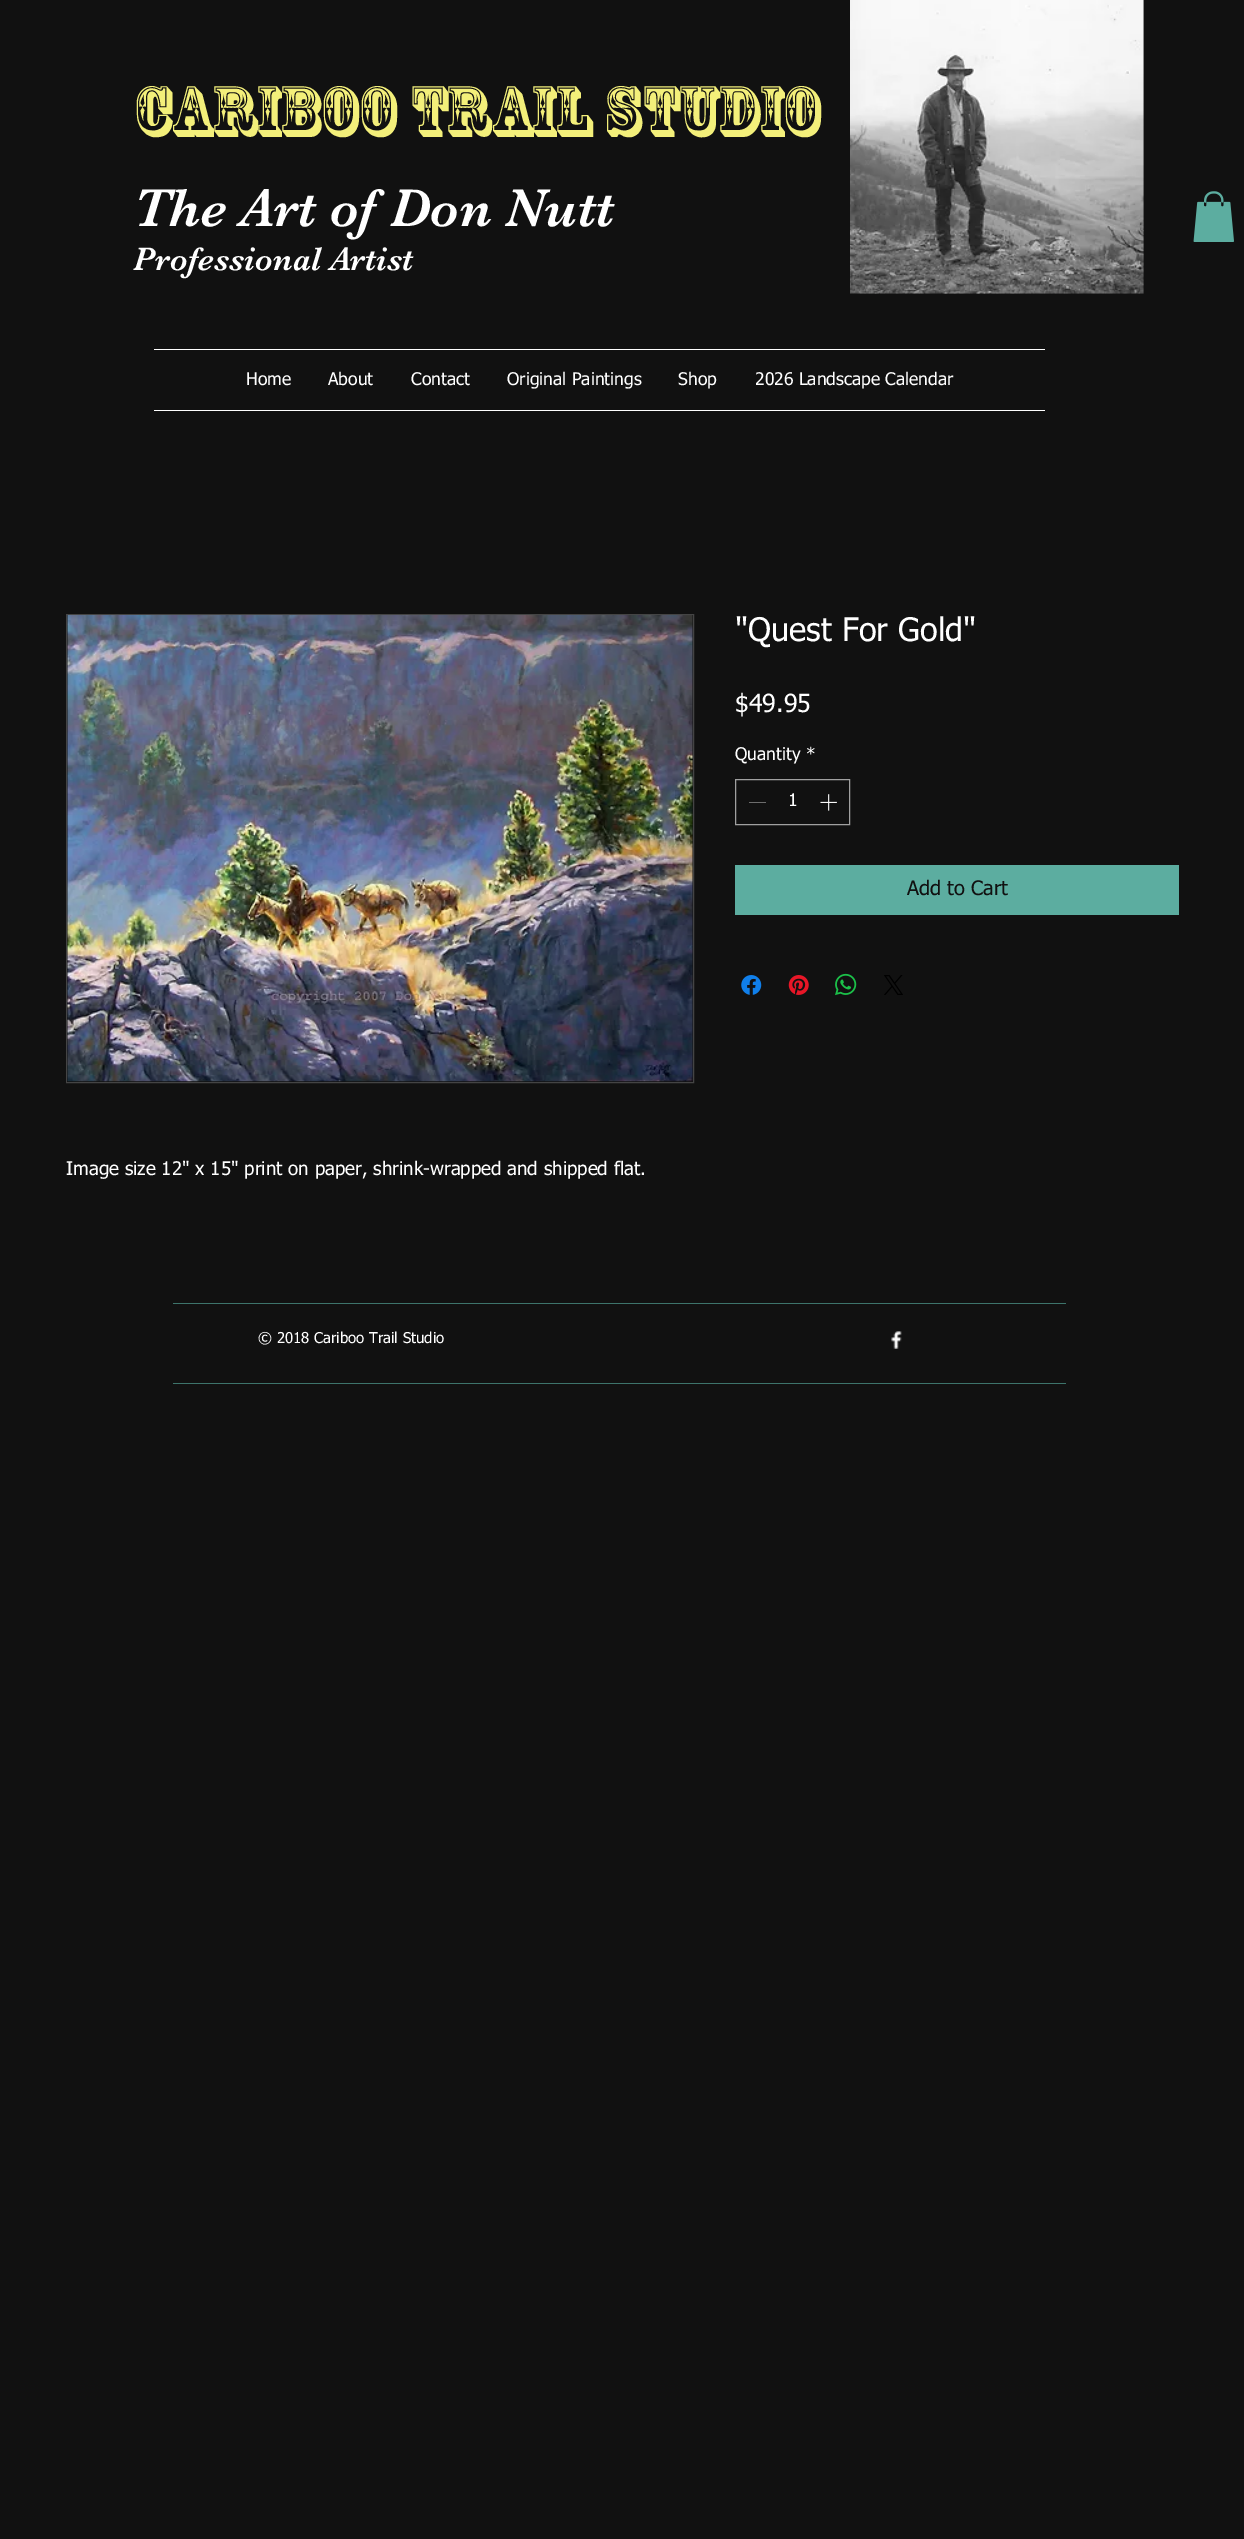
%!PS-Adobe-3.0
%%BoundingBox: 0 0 1244 2539
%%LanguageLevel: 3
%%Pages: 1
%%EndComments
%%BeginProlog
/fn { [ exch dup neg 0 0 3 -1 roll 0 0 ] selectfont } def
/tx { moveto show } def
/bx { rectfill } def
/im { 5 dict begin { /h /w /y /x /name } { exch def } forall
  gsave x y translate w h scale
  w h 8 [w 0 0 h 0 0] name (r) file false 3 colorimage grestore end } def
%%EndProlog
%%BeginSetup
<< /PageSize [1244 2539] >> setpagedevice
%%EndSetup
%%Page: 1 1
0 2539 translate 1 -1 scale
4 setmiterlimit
0.067 setgray
0 0 1244 2539 bx
/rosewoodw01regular-Regular 67.5 fn
0.953 0.937 0.478 setrgbcolor
(Cariboo Trail Studio) 133 130 tx
(image0.raw) 850 0 294 294 im
/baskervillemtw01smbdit-Regular 55 fn
1 setgray
(The Art of Don Nutt) 133 226 tx
/baskervillemtw01smbdit-Regular 33.75 fn
(Professional Artist) 133 270 tx
(image1.raw) 1193 191 41 51 im
154 349 891 1 bx
154 410 891 1 bx
/tahoma-Regular 17.5 fn
(Home) 246 385 tx
(About) 328 385 tx
(Contact) 411 385 tx
(Original Paintings) 507 385 tx
(Shop) 678 385 tx
(2026 Landscape Calendar) 755 385 tx
/tahoma-Regular 32.5 fn
("Quest For Gold") 735 641 tx
/tahoma-Regular 25 fn
($49.95) 735 712 tx
/tahoma-Regular 17.5 fn
(Quantity) 735 760 tx
(*) 806 760 tx
0.627 setgray
735.5 779.5 114 45 rectstroke
0.424 setgray
749 802 17 1 bx
1 setgray
(1) 788 806 tx
(image2.raw) 820 794 17 17 im
0.361 0.678 0.627 setrgbcolor
735 865 444 50 bx
/tahoma-Regular 20 fn
0.067 setgray
(Add to Cart) 907 895 tx
(image3.raw) 741 975 21 20 im
(image4.raw) 788 975 21 20 im
(image5.raw) 835 973 22 23 im
(image6.raw) 884 975 19 20 im
0.267 setgray
66.5 614.5 627 468 rectstroke
(image7.raw) 67 615 626 467 im
/tahoma-Regular 18.75 fn
1 setgray
(Image size 12" x 15" print on paper, shrink-wrapped and shipped flat.) 66 1175 tx
0.239 0.455 0.42 setrgbcolor
173 1303 893 1 bx
/tahoma-Regular 15 fn
1 setgray
(© 2018 Cariboo Trail Studio) 258 1343 tx
(image8.raw) 891 1331 11 18 im
0.239 0.455 0.42 setrgbcolor
173 1383 893 1 bx
showpage
%%EOF
